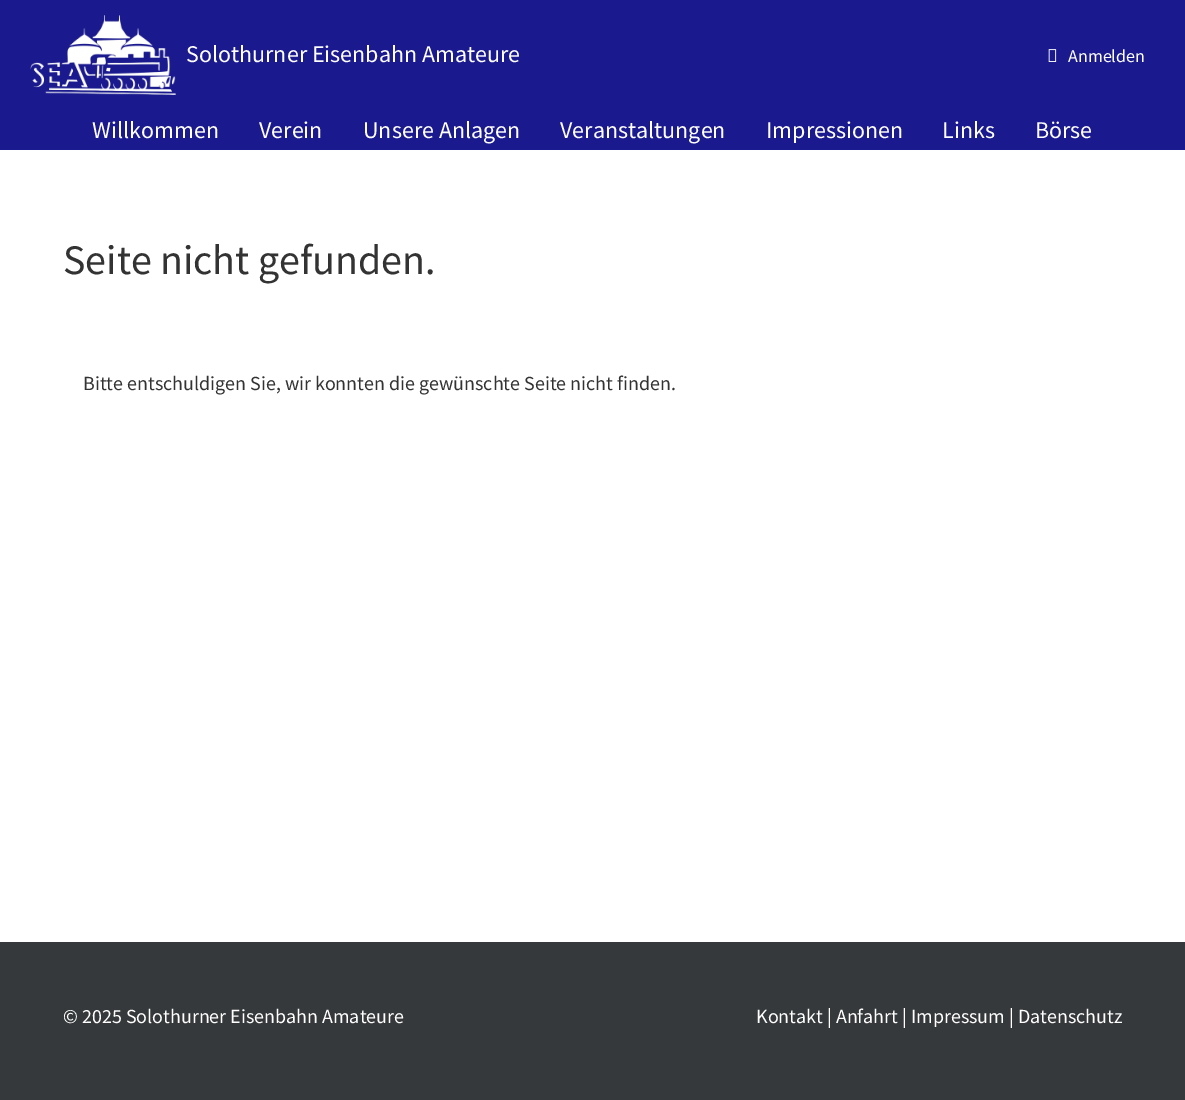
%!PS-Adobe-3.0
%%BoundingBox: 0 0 1185 1100
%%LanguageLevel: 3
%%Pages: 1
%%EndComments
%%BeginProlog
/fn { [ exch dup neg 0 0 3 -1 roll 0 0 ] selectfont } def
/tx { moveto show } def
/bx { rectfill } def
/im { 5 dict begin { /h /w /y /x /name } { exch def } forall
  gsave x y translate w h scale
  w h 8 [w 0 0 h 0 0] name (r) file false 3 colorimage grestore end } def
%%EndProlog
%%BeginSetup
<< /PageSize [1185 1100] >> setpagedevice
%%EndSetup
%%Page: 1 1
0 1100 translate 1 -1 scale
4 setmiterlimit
1 setgray
0 0 1185 1100 bx
0.102 0.102 0.557 setrgbcolor
0 0 1185 150 bx
(image0.raw) 30 15 146 80 im
/SourceSansPro-Regular 24 fn
1 setgray
(Solothurner Eisenbahn Amateure) 186 62 tx
(image1.raw) 1048 49 9 13 im
/SourceSansPro-Regular 18 fn
(Anmelden) 1068 62 tx
/SourceSansPro-Regular 24 fn
(Willkommen) 92 138 tx
(Verein) 259 138 tx
(Unsere Anlagen) 363 138 tx
(Veranstaltungen) 560 138 tx
(Impressionen) 766 138 tx
(Links) 942 138 tx
(Börse) 1035 138 tx
/SourceSansPro-Regular 42 fn
0.2 setgray
(Seite nicht gefunden.) 63 274 tx
/SourceSansPro-Regular 20 fn
(Bitte entschuldigen Sie, wir konnten die gewünschte Seite nicht finden.) 83 390 tx
0.212 0.224 0.231 setrgbcolor
0 942 1185 158 bx
1 setgray
(© 2025 Solothurner Eisenbahn Amateure) 63 1023 tx
(Kontakt | Anfahrt | Impressum | Datenschutz) 756 1023 tx
showpage
%%EOF
